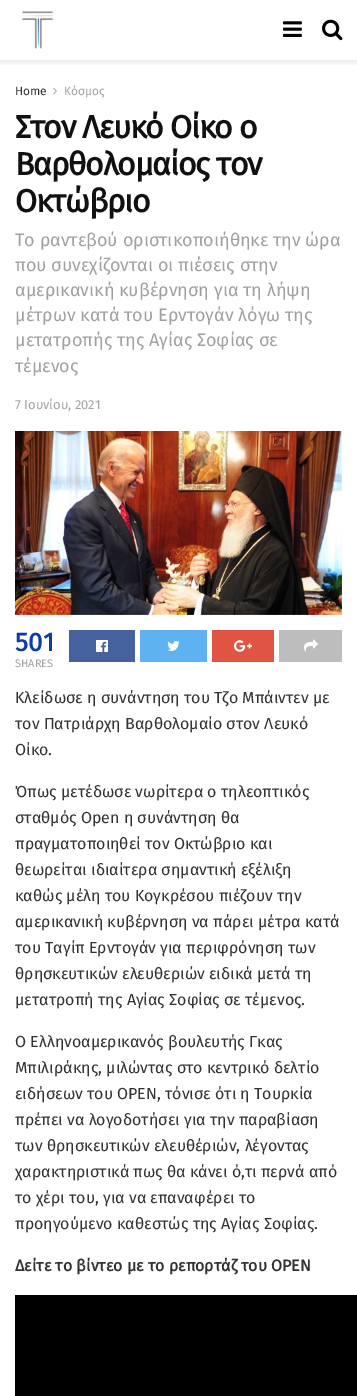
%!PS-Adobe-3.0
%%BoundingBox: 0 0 357 1396
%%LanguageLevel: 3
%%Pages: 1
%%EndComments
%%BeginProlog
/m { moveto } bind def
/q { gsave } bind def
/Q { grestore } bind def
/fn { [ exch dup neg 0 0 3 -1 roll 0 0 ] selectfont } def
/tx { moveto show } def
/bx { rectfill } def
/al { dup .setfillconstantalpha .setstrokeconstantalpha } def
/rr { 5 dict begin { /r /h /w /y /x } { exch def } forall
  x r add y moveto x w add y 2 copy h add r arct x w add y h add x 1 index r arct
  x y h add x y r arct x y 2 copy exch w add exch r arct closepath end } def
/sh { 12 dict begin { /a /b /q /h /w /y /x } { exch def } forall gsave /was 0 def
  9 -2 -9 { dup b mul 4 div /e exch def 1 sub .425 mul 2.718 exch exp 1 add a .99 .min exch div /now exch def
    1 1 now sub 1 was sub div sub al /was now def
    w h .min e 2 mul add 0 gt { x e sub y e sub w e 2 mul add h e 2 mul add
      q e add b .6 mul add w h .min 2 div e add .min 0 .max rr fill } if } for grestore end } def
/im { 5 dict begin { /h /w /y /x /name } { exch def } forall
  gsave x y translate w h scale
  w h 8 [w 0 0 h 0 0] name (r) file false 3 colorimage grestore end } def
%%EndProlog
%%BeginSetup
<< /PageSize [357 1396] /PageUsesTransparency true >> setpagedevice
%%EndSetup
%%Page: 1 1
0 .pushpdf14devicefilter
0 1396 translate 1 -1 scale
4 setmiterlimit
1 setgray
0 0 357 1396 bx
q
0 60 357 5 rectclip
0 setgray
0 2 357 60 0 3 0.1 sh
Q
(image0.raw) 22 11 32 38 im
(image1.raw) 283 21 19 16 im
(image2.raw) 322 19 21 22 im
/FiraSans-Regular 12 fn
0.196 setgray
(Home) 15 95 tx
(image3.raw) 53 87 4 8 im
0.627 setgray
(Κόσμος) 64 95 tx
/FiraSans-Bold 32 fn
0.067 setgray
15 138 m -1.25 0 (Στον Λευκό Οίκο ο) ashow
15 175 m -1.25 0 (Βαρθολομαίος τον) ashow
15 212 m -1.25 0 (Οκτώβριο) ashow
/FiraSans-Regular 18 fn
0.627 setgray
(Το ραντεβού οριστικοποιήθηκε την ώρα) 15 246 tx
(που συνεχίζονται οι πιέσεις στην) 15 271 tx
(αμερικανική κυβέρνηση για τη λήψη) 15 296 tx
(μέτρων κατά του Ερντογάν λόγω της) 15 321 tx
(μετατροπής της Αγίας Σοφίας σε) 15 346 tx
(τέμενος) 15 372 tx
/FiraSans-Regular 13 fn
(7 Ιουνίου, 2021) 15 409 tx
(image4.raw) 15 431 327 184 im
/FiraSans-Bold 26 fn
0.047 0.235 0.663 setrgbcolor
(501) 15 651 tx
/FiraSans-Regular 11 fn
0.627 setgray
(SHARES) 15 667 tx
0.271 0.384 0.624 setrgbcolor
69 630 66 32 bx
(image5.raw) 96 640 12 12 im
0.369 0.698 0.937 setrgbcolor
140 630 67 32 bx
(image6.raw) 167 641 13 10 im
0.875 0.329 0.263 setrgbcolor
212 630 62 32 bx
(image7.raw) 234 640 18 12 im
0.741 setgray
279 630 63 32 bx
(image8.raw) 304 639 14 13 im
/FiraSans-Regular 16 fn
0.196 setgray
(Κλείδωσε η συνάντηση του Τζο Μπάιντεν με) 15 703 tx
(τον Πατριάρχη Βαρθολομαίο στον Λευκό) 15 729 tx
(Οίκο.) 15 755 tx
(Όπως μετέδωσε νωρίτερα ο τηλεοπτικός) 15 797 tx
(σταθμός Open η συνάντηση θα) 15 823 tx
(πραγματοποιηθεί τον Οκτώβριο και) 15 849 tx
(θεωρείται ιδιαίτερα σημαντική εξέλιξη) 15 875 tx
(καθώς μέλη του Κογκρέσου πιέζουν την) 15 901 tx
(αμερικανική κυβέρνηση να πάρει μέτρα κατά) 15 927 tx
(του Ταγίπ Ερντογάν για περιφρόνηση των) 15 953 tx
(θρησκευτικών ελευθεριών ειδικά μετά τη) 15 979 tx
(μετατροπή της Αγίας Σοφίας σε τέμενος.) 15 1005 tx
(Ο Ελληνοαμερικανός βουλευτής Γκας) 15 1047 tx
(Μπιλιράκης, μιλώντας στο κεντρικό δελτίο) 15 1073 tx
(ειδήσεων του ΟΡΕΝ, τόνισε ότι η Τουρκία) 15 1099 tx
(πρέπει να λογοδοτήσει για την παραβίαση) 15 1125 tx
(των θρησκευτικών ελευθέριών, λέγοντας) 15 1151 tx
(χαρακτηριστικά πως θα κάνει ό,τι περνά από) 15 1177 tx
(το χέρι του, για να επαναφέρει το) 15 1203 tx
(προηγούμενο καθεστώς της Αγίας Σοφίας.) 15 1229 tx
/FiraSans-Bold 16 fn
(Δείτε το βίντεο με το ρεπορτάζ του OPEN) 15 1271 tx
0 setgray
15 1295 342 101 bx
.poppdf14devicefilter showpage
%%EOF
